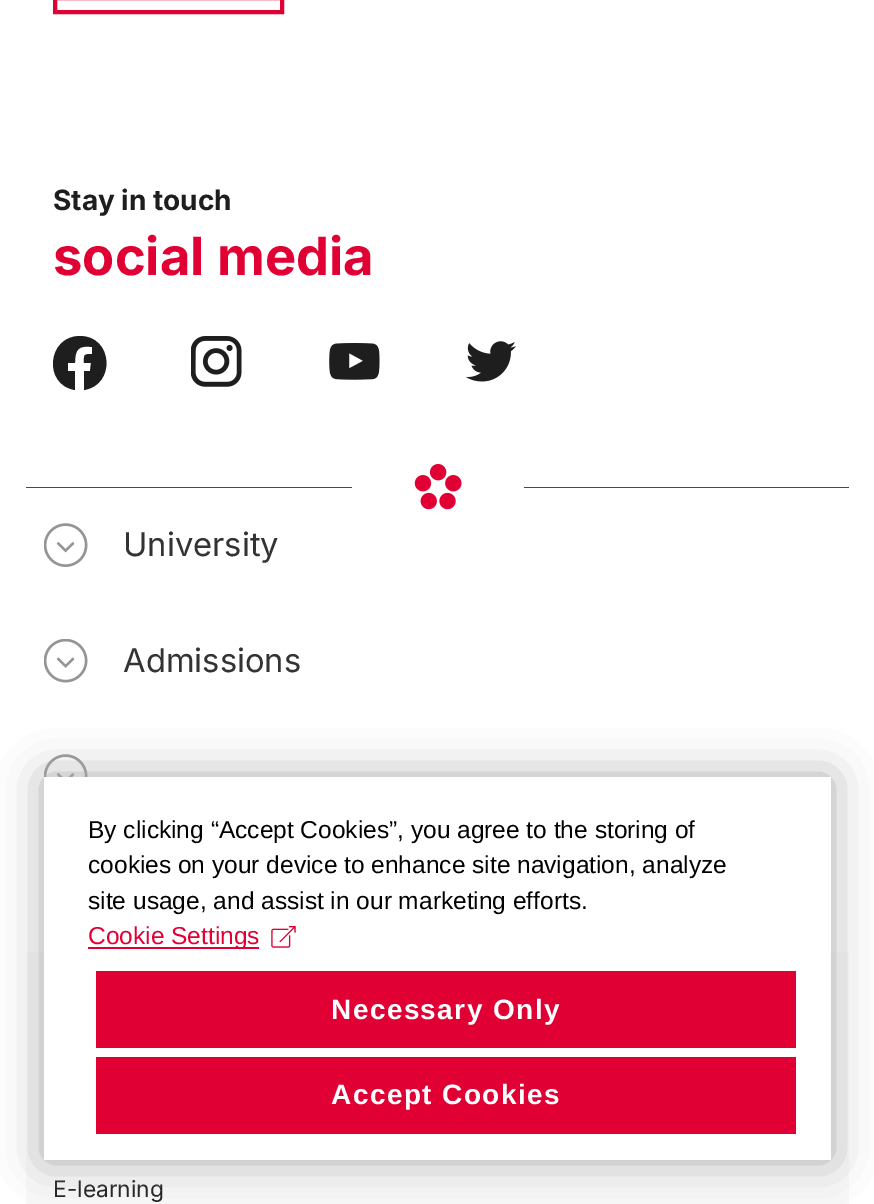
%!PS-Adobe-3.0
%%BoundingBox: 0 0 874 1204
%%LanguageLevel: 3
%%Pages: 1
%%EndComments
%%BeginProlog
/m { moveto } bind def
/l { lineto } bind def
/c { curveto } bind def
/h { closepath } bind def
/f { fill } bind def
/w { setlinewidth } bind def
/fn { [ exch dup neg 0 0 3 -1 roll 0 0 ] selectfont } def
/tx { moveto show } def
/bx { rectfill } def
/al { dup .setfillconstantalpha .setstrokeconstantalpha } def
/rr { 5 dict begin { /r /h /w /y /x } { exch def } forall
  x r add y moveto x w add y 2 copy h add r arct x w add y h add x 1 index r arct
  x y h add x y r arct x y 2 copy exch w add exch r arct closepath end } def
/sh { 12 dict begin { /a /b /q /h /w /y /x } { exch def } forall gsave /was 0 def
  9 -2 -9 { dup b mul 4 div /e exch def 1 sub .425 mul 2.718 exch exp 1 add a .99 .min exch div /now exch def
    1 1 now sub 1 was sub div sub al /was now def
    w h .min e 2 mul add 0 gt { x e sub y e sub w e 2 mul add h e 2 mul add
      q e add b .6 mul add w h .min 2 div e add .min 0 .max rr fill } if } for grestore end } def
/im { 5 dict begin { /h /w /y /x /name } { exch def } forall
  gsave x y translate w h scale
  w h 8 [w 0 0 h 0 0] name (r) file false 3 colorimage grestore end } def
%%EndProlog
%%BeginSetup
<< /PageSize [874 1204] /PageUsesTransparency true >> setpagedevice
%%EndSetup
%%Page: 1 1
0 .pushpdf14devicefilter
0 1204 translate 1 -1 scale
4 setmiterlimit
1 setgray
0 0 874 1204 bx
0.878 0 0.204 setrgbcolor
4 w
55 -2 227 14 rectstroke
/Inter-Bold 28 fn
0.118 setgray
(Stay in touch) 53 210 tx
/Inter-Bold 52.5 fn
0.878 0 0.204 setrgbcolor
(social media) 53 275 tx
0.118 setgray
80 336 m 47 336 43 385 75 390 c 75 371 l 68 371 l 68 363 l 75 363 l 75 350 78 345 92 347 c 92 354 l 83 354 84 355 84 363 c 91 363 l 90 371 l 84 371 l 84 390 l 116 385 113 336 80 336 c h f
(image0.raw) 191 336 51 51 im
(image1.raw) 329 343 51 37 im
(image2.raw) 466 341 50 41 im
0.878 0 0.204 setrgbcolor
26 487 823 1 bx
(image3.raw) 352 464 172 46 im
(image4.raw) 44 523 44 44 im
/Inter-Regular 32.75 fn
0.2 setgray
(University) 123 556 tx
(image5.raw) 44 639 44 44 im
(Admissions) 123 672 tx
(image6.raw) 44 754 44 23 im
0.973 setgray
26 952 823 252 bx
/Inter-Regular 22.75 fn
0.118 setgray
(E-learning) 53 1197 tx
0.667 setgray
44 777 787 383 0 22 1 sh
1 setgray
44 777 787 383 bx
/LiberationSans-Regular 24.5 fn
0 setgray
(By clicking “Accept Cookies”, you agree to the storing of) 88 838 tx
(cookies on your device to enhance site navigation, analyze) 88 873 tx
(site usage, and assist in our marketing efforts.) 88 909 tx
0.878 0 0.204 setrgbcolor
88 947 171 2 bx
(Cookie Settings) 88 944 tx
(image7.raw) 271 925 25 23 im
96 971 700 77 bx
/LiberationSans-Bold 28 fn
1 setgray
331 1019 m 1.4 0 (Necessary Only) ashow
0.878 0 0.204 setrgbcolor
96 1057 700 77 bx
1 setgray
331 1104 m 1.4 0 (Accept Cookies) ashow
.poppdf14devicefilter showpage
%%EOF
